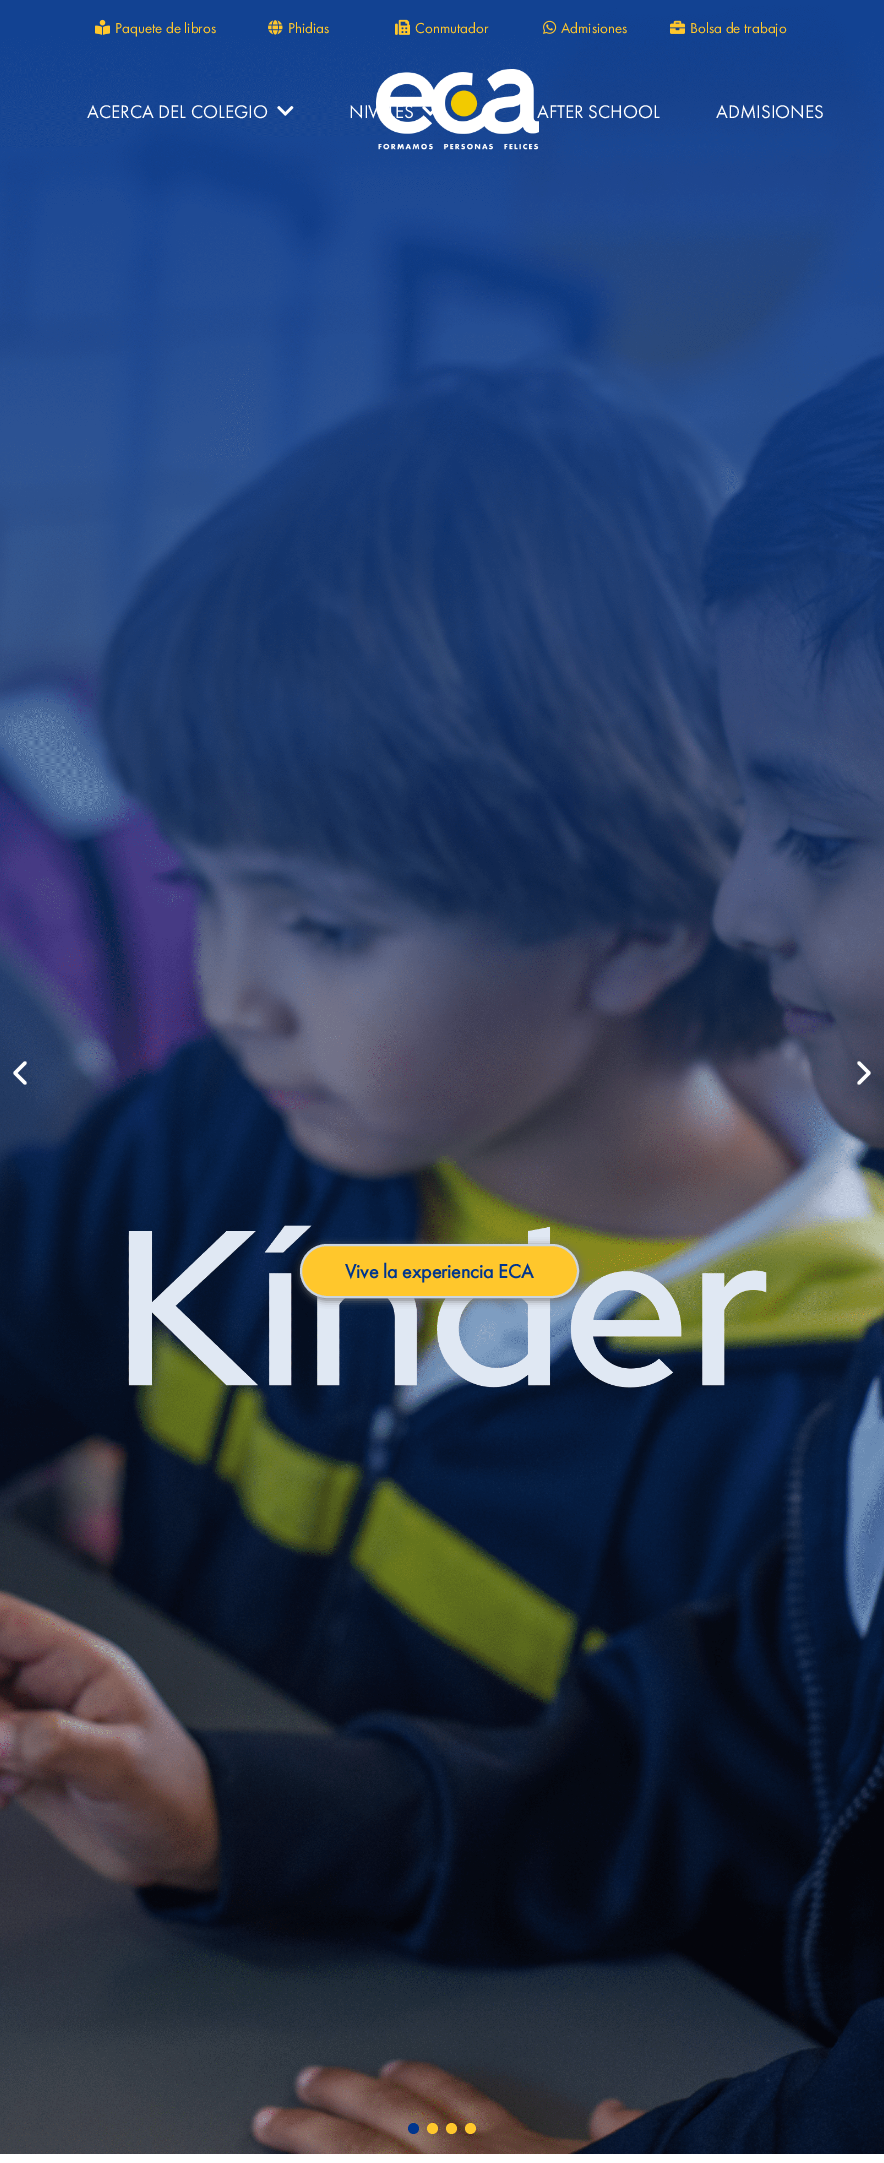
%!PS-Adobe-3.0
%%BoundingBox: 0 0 884 2163
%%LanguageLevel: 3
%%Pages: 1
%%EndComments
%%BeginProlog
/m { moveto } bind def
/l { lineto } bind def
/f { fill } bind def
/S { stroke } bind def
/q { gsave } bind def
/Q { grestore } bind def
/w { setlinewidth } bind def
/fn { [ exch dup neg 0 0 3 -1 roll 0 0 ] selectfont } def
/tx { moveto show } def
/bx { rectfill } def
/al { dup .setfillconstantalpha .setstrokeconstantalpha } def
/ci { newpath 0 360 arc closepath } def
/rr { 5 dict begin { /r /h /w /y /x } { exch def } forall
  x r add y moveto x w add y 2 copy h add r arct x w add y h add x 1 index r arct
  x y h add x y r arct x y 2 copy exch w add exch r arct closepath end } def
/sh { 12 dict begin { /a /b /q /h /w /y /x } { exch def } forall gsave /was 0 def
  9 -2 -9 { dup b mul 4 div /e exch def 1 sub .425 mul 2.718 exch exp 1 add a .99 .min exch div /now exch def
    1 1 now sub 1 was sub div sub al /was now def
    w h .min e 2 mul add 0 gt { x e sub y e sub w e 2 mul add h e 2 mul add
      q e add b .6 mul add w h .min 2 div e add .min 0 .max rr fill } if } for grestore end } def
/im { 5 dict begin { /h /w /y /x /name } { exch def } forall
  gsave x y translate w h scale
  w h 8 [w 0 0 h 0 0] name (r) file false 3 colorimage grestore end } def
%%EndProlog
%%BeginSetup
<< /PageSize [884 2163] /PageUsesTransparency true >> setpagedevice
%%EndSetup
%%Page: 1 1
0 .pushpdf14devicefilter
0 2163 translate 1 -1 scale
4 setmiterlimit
1 setgray
0 0 884 2163 bx
(image8.raw) 0 0 884 2154 im
(image0.raw) 95 19 15 16 im
/FuturaPT-Regular 15 fn
1 0.78 0.173 setrgbcolor
(Paquete de libros) 115 33 tx
(image1.raw) 268 20 15 15 im
(Phidias) 288 33 tx
(image2.raw) 395 19 15 16 im
(Conmutador) 415 33 tx
(image3.raw) 543 20 14 14 im
(Admisiones) 561 33 tx
(image4.raw) 670 20 15 14 im
(Bolsa de trabajo) 690 33 tx
/FuturaPT-Regular 19 fn
1 setgray
(ACERCA DEL COLEGIO) 87 118 tx
(image5.raw) 277 106 17 10 im
(NIVELES) 349 118 tx
(image6.raw) 422 106 12 10 im
(image7.raw) 376 69 163 81 im
(AFTER SCHOOL) 537 118 tx
(ADMISIONES) 716 118 tx
3.3 w
1 setlinecap
1 setlinejoin
25 1083 m 15 1073 l 25 1063 l S
859 1083 m 869 1073 l 859 1063 l S
0 0.208 0.557 setrgbcolor
413.5 2128.5 5.5 ci f
1 0.78 0.173 setrgbcolor
432.5 2128.5 5.5 ci f
451.5 2128.5 5.5 ci f
470.5 2128.5 5.5 ci f
0.439 setgray
302 1246 279 54 27 4 1 sh
1 0.78 0.173 setrgbcolor
301 1245 277 52 26 rr q f Q
0.796 0.835 0.878 setrgbcolor
2 w
0 setlinecap
0 setlinejoin
S
/FuturaPT-Bold 20 fn
0 0.208 0.557 setrgbcolor
(Vive la experiencia ECA) 345 1278 tx
.poppdf14devicefilter showpage
%%EOF
